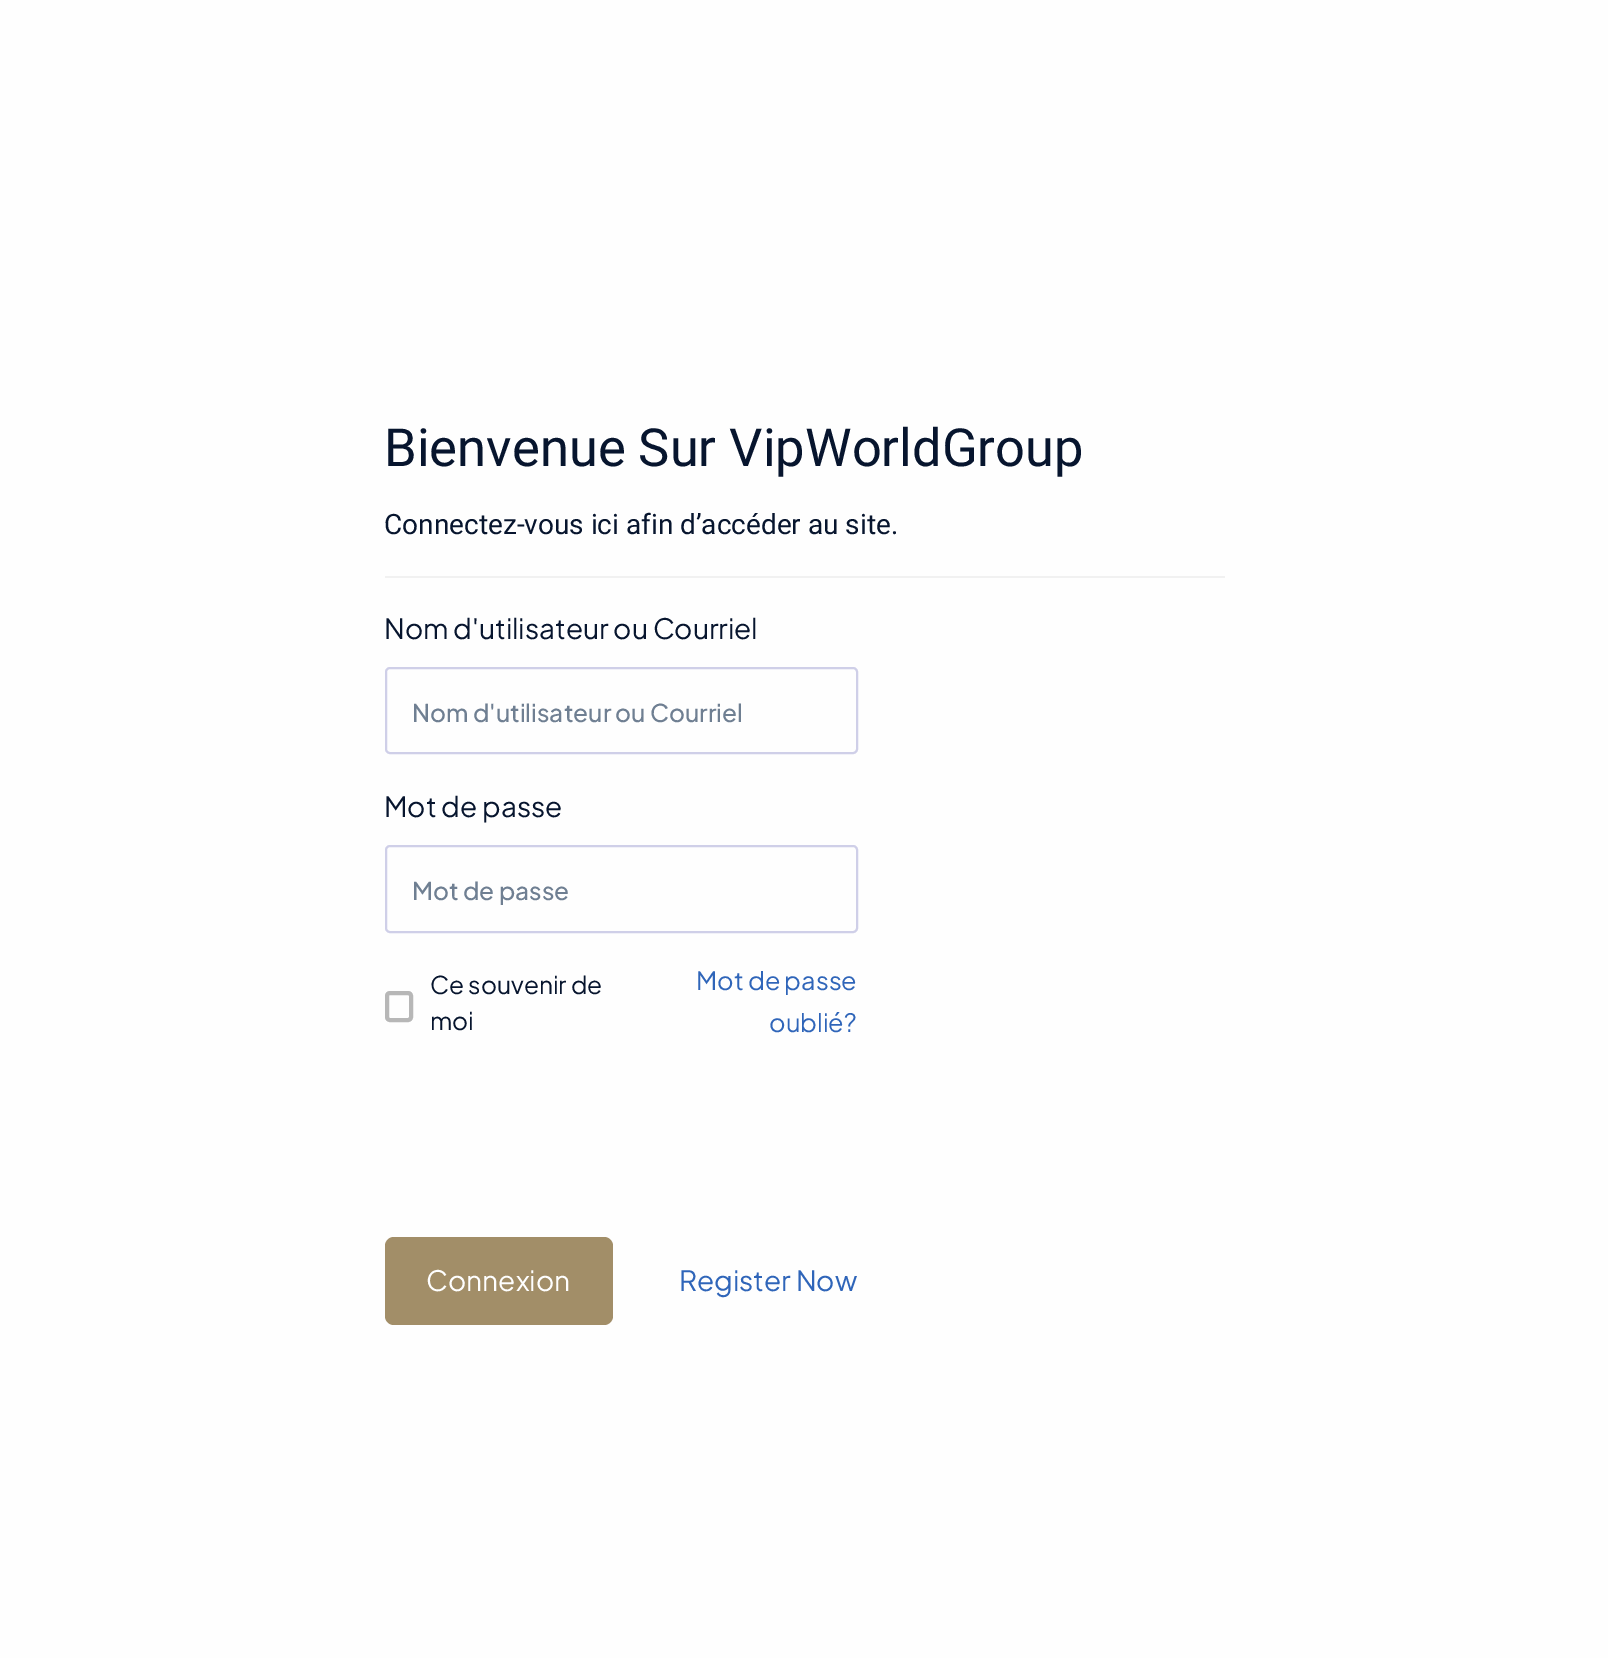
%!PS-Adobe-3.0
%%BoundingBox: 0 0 1608 1658
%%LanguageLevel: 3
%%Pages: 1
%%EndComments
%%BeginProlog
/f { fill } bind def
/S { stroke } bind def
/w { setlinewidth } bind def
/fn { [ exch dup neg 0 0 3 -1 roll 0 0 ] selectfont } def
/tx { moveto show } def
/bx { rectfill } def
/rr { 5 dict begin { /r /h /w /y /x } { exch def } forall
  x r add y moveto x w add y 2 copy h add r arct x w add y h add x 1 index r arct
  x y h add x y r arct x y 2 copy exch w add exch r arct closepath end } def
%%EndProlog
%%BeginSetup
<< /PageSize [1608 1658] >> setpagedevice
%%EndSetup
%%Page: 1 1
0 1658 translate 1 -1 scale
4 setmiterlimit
0.996 setgray
0 0 1608 1658 bx
/Roboto-Regular 52.5 fn
0.027 0.082 0.18 setrgbcolor
(Bienvenue Sur VipWorldGroup) 384 466 tx
/Roboto-Regular 28 fn
(Connectez-vous ici afin d’accéder au site.) 384 534 tx
0.945 setgray
385 576 840 2 bx
/PlusJakartaSans-Regular 28 fn
0.027 0.082 0.18 setrgbcolor
(Nom d'utilisateur ou Courriel) 384 639 tx
0.812 0.812 0.91 setrgbcolor
2 w
386 668 471 85 4 rr S
/PlusJakartaSans-Medium 24.5 fn
0.435 0.498 0.573 setrgbcolor
(Nom d'utilisateur ou Courriel) 412 722 tx
/PlusJakartaSans-Regular 28 fn
0.027 0.082 0.18 setrgbcolor
(Mot de passe) 384 817 tx
0.812 0.812 0.91 setrgbcolor
386 846 471 86 4 rr S
/PlusJakartaSans-Medium 24.5 fn
0.435 0.498 0.573 setrgbcolor
(Mot de passe) 412 900 tx
0.718 setgray
4 w
387 993 24 27 3 rr S
/PlusJakartaSans-Regular 24.5 fn
0.027 0.082 0.18 setrgbcolor
(Ce souvenir de) 430 994 tx
(moi) 430 1030 tx
/PlusJakartaSans-Regular 25.25 fn
0.184 0.396 0.725 setrgbcolor
(Mot de passe) 696 990 tx
(oublié?) 769 1032 tx
0.635 0.557 0.408 setrgbcolor
385 1237 228 88 9 rr f
/PlusJakartaSans-Regular 28 fn
1 setgray
(Connexion) 426 1291 tx
0.184 0.396 0.725 setrgbcolor
(Register Now) 679 1291 tx
showpage
%%EOF
